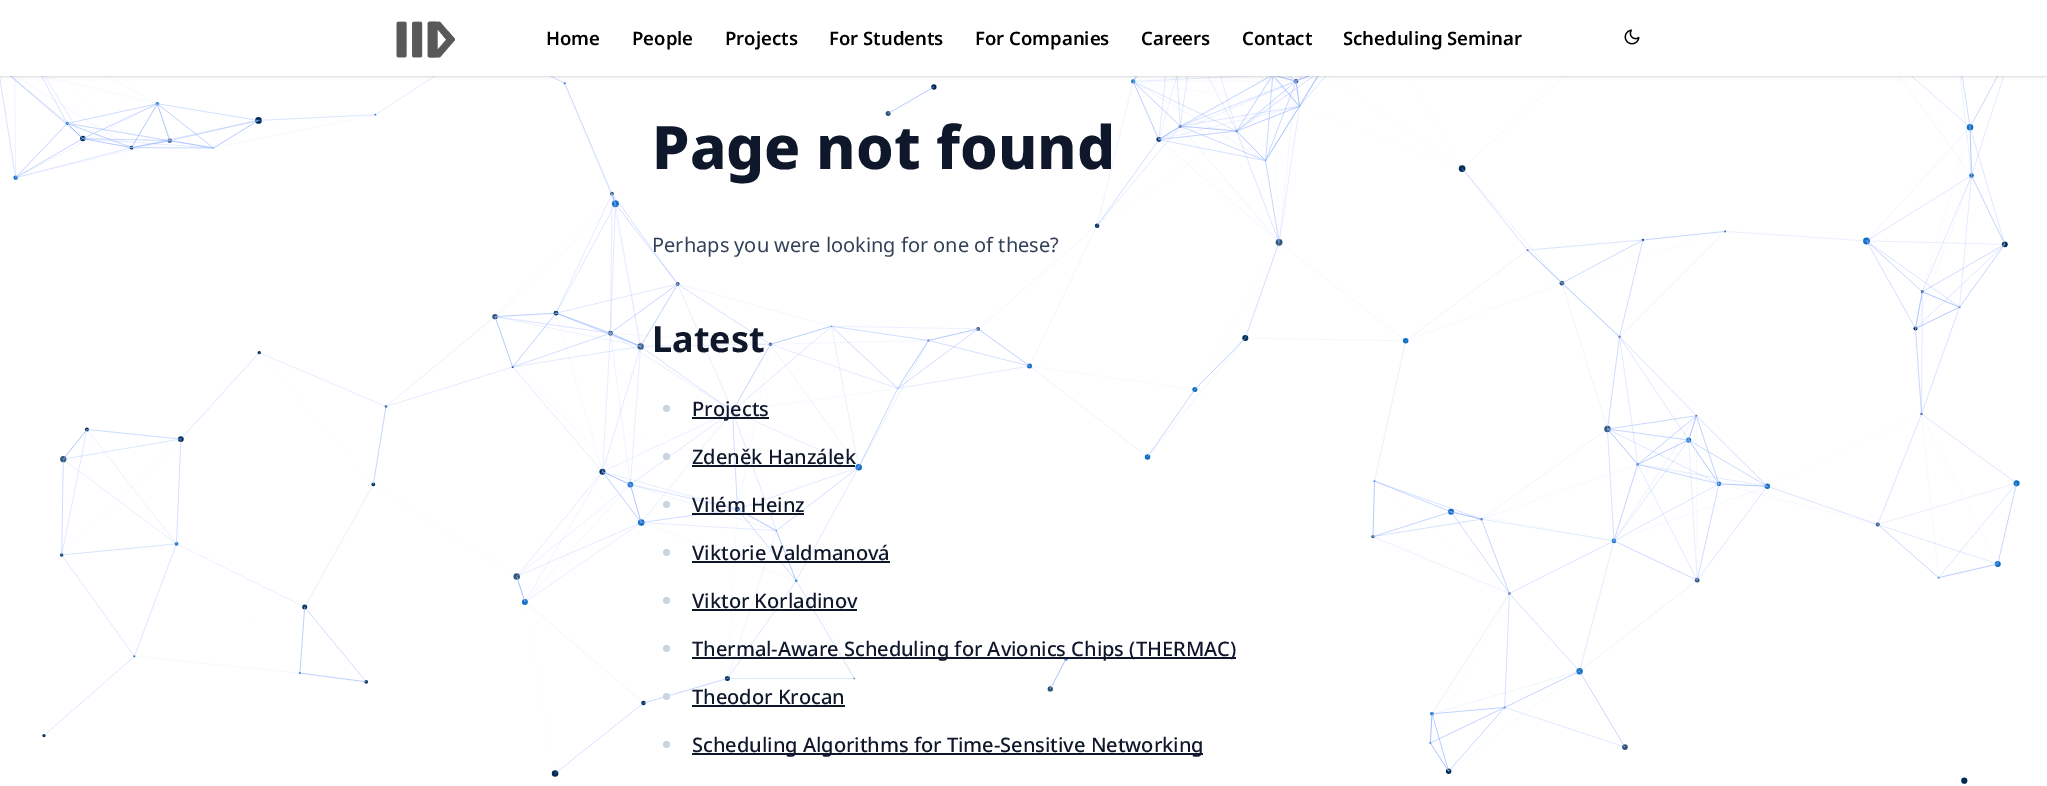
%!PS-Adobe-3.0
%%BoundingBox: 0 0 2047 786
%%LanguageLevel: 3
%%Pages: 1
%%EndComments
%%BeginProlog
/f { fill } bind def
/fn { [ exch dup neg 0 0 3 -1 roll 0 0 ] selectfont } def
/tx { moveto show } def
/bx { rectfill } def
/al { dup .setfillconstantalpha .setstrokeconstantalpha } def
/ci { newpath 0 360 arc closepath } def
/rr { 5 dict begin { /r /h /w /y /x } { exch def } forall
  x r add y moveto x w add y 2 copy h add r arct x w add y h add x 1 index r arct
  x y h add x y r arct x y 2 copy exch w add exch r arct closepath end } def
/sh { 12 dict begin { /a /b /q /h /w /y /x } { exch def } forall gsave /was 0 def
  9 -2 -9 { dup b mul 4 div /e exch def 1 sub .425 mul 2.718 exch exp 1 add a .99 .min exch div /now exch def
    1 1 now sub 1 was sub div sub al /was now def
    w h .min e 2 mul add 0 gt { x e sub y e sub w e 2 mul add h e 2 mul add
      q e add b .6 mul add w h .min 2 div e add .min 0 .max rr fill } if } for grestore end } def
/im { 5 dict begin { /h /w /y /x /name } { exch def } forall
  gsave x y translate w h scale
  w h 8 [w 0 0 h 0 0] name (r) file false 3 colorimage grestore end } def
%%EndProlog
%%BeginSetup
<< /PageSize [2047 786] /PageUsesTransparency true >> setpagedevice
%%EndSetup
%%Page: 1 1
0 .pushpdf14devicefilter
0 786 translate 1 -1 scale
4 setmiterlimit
1 setgray
0 0 2047 786 bx
(image2.raw) 0 76 2020 708 im
0 setgray
1 2 2045 74 0 1 0.1 sh
0 1 2047 76 0 1.5 0.1 sh
1 setgray
0 0 2047 76 bx
(image0.raw) 396 21 59 37 im
/NotoSans-SemiBold 18.5 fn
0 setgray
(Home) 546 45 tx
(People) 632 45 tx
(Projects) 725 45 tx
(For Students) 829 45 tx
(For Companies) 975 45 tx
(Careers) 1141 45 tx
(Contact) 1242 45 tx
(Scheduling Seminar) 1343 45 tx
(image1.raw) 1624 29 16 16 im
/NotoSans-ExtraBold 60 fn
0.059 0.09 0.169 setrgbcolor
(Page not found) 652 169 tx
/NotoSans-Regular 20 fn
0.192 0.255 0.345 setrgbcolor
(Perhaps you were looking for one of these?) 652 252 tx
/NotoSans-Bold 36 fn
0.059 0.09 0.169 setrgbcolor
(Latest) 652 352 tx
0.792 0.835 0.886 setrgbcolor
666.5 408.5 3.5 ci f
0.059 0.09 0.169 setrgbcolor
692 417 77 2 bx
/NotoSans-Medium 20 fn
(Projects) 692 416 tx
0.792 0.835 0.886 setrgbcolor
666.5 456.5 3.5 ci f
0.059 0.09 0.169 setrgbcolor
(Zdeněk Hanzálek) 692 464 tx
692 465 163 2 bx
0.792 0.835 0.886 setrgbcolor
666.5 504.5 3.5 ci f
0.059 0.09 0.169 setrgbcolor
(Vilém Heinz) 692 512 tx
692 513 112 2 bx
0.792 0.835 0.886 setrgbcolor
666.5 552.5 3.5 ci f
0.059 0.09 0.169 setrgbcolor
(Viktorie Valdmanová) 692 560 tx
692 561 198 2 bx
0.792 0.835 0.886 setrgbcolor
666.5 600.5 3.5 ci f
0.059 0.09 0.169 setrgbcolor
(Viktor Korladinov) 692 608 tx
692 609 165 2 bx
0.792 0.835 0.886 setrgbcolor
666.5 648.5 3.5 ci f
0.059 0.09 0.169 setrgbcolor
692 657 544 2 bx
(Thermal-Aware Scheduling for Avionics Chips \(THERMAC\)) 692 656 tx
0.792 0.835 0.886 setrgbcolor
666.5 696.5 3.5 ci f
0.059 0.09 0.169 setrgbcolor
(Theodor Krocan) 692 704 tx
692 705 153 2 bx
0.792 0.835 0.886 setrgbcolor
666.5 744.5 3.5 ci f
0.059 0.09 0.169 setrgbcolor
692 753 511 2 bx
(Scheduling Algorithms for Time-Sensitive Networking) 692 752 tx
.poppdf14devicefilter showpage
%%EOF
